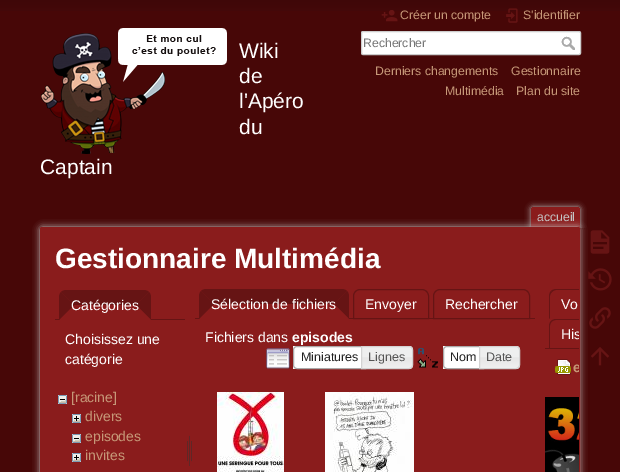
%!PS-Adobe-3.0
%%BoundingBox: 0 0 620 472
%%LanguageLevel: 3
%%Pages: 1
%%EndComments
%%BeginProlog
/m { moveto } bind def
/l { lineto } bind def
/c { curveto } bind def
/h { closepath } bind def
/f { fill } bind def
/S { stroke } bind def
/q { gsave } bind def
/Q { grestore } bind def
/fn { [ exch dup neg 0 0 3 -1 roll 0 0 ] selectfont } def
/tx { moveto show } def
/bx { rectfill } def
/al { dup .setfillconstantalpha .setstrokeconstantalpha } def
/rr { 5 dict begin { /r /h /w /y /x } { exch def } forall
  x r add y moveto x w add y 2 copy h add r arct x w add y h add x 1 index r arct
  x y h add x y r arct x y 2 copy exch w add exch r arct closepath end } def
/sh { 12 dict begin { /a /b /q /h /w /y /x } { exch def } forall gsave /was 0 def
  9 -2 -9 { dup b mul 4 div /e exch def 1 sub .425 mul 2.718 exch exp 1 add a .99 .min exch div /now exch def
    1 1 now sub 1 was sub div sub al /was now def
    w h .min e 2 mul add 0 gt { x e sub y e sub w e 2 mul add h e 2 mul add
      q e add b .6 mul add w h .min 2 div e add .min 0 .max rr fill } if } for grestore end } def
/im { 5 dict begin { /h /w /y /x /name } { exch def } forall
  gsave x y translate w h scale
  w h 8 [w 0 0 h 0 0] name (r) file false 3 colorimage grestore end } def
%%EndProlog
%%BeginSetup
<< /PageSize [620 472] /PageUsesTransparency true >> setpagedevice
%%EndSetup
%%Page: 1 1
0 .pushpdf14devicefilter
0 472 translate 1 -1 scale
4 setmiterlimit
0.278 0.027 0.027 setrgbcolor
0 0 620 472 bx
(image0.raw) 0 0 620 11 im
(image1.raw) 41 28 186 126 im
/LiberationSans-Regular 21 fn
1 setgray
(Wiki) 239 58 tx
(de) 239 83 tx
(l'Apéro) 239 108 tx
(du) 239 134 tx
(Captain) 40 174 tx
(image2.raw) 381 10 17 12 im
/LiberationSans-Regular 12.25 fn
0.776 0.596 0.471 setrgbcolor
(Créer un compte) 400 19 tx
(image3.raw) 506 8 12 15 im
(S'identifier) 523 19 tx
1 setgray
361.5 31.5 219 23 1.5 rr q f Q
0.8 setgray
S
0.459 setgray
(Rechercher) 363 47 tx
(image4.raw) 561 36 14 14 im
0.776 0.596 0.471 setrgbcolor
(Derniers changements) 375 75 tx
(Gestionnaire) 511 75 tx
(Multimédia) 445 95 tx
(Plan du site) 516 95 tx
q
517 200 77 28 rectclip
0.769 setgray
531 207 49 21 2 3 1 sh
Q
0.541 0.11 0.11 setrgbcolor
533 208 m 578 208 l 578.5 208 579 208.5 579 209 c 579 228 l 532 228 l 532 209 l 532 208.5 532.5 208 533 208 c h f
532 207 47 1 bx
579 208 1 20 bx
531 208 1 20 bx
0.769 setgray
(accueil) 537 221 tx
40 227 540 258 2 3.5 1 sh
0.541 0.11 0.11 setrgbcolor
40.5 227.5 539 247 1.5 rr q f Q
S
/LiberationSans-Bold 28 fn
1 setgray
(Gestionnaire Multimédia) 55 268 tx
0.4 0.078 0.078 setrgbcolor
66 290 m 144 290 l 146 290 148 291 149 292 c 136 305 l 74 305 l 61 292 l 62 291 64 290 66 290 c h f
55 319 130 1 bx
149 292 m 136 305 l 151 320 l 151 297 l 151 295 150 293 149 292 c h f
0.541 0.11 0.11 setrgbcolor
151 320 m 136 305 l 74 305 l 59 320 l h f
0.4 0.078 0.078 setrgbcolor
59 320 m 59 297 l 59 295 60 293 61 292 c 74 305 l h f
/LiberationSans-Regular 14 fn
1 setgray
(Catégories) 71 310 tx
(Choisissez une) 65 344 tx
(catégorie) 65 364 tx
(image5.raw) 58 395 9 9 im
0.776 0.596 0.471 setrgbcolor
([racine]) 71 402 tx
(image6.raw) 72 414 9 9 im
(divers) 85 421 tx
(image5.raw) 72 434 9 9 im
(episodes) 85 441 tx
(image6.raw) 72 453 9 9 im
(invites) 85 460 tx
(image7.raw) 187 435 5 31 im
0.4 0.078 0.078 setrgbcolor
206 289 m 342 289 l 344 289 346 290 347 291 c 334 304 l 214 304 l 201 291 l 202 290 204 289 206 289 c h f
360 289.5 m 422 289.5 l 425.5 289.5 428.5 292.5 428.5 296 c 428.5 318.5 l 353.5 318.5 l 353.5 296 l 353.5 292.5 356.5 289.5 360 289.5 c h S
440 289.5 m 523 289.5 l 526.5 289.5 529.5 292.5 529.5 296 c 529.5 318.5 l 433.5 318.5 l 433.5 296 l 433.5 292.5 436.5 289.5 440 289.5 c h S
195 318 340 1 bx
347 291 m 334 304 l 349 319 l 349 296 l 349 294 348 292 347 291 c h f
0.541 0.11 0.11 setrgbcolor
349 319 m 334 304 l 214 304 l 199 319 l h f
0.4 0.078 0.078 setrgbcolor
199 319 m 199 296 l 199 294 200 292 201 291 c 214 304 l h f
1 setgray
(Sélection de fichiers) 211 309 tx
(Envoyer) 365 309 tx
(Rechercher) 445 309 tx
(Fichiers dans) 205 342 tx
/LiberationSans-Bold 14 fn
(episodes) 292 342 tx
(image8.raw) 266 348 24 21 im
297 347 64 21 bx
293 346 4 23 bx
0.667 setgray
297 346.5 m 365.5 346.5 l 365.5 368.5 l 297 368.5 l 295 368.5 293.5 367 293.5 365 c 293.5 350 l 293.5 348 295 346.5 297 346.5 c h S
/LiberationSans-Regular 12.5 fn
0.129 setgray
(Miniatures) 301 361 tx
(image9.raw) 362 346 51 23 im
0.827 setgray
361.5 346.5 m 409 346.5 l 411 346.5 412.5 348 412.5 350 c 412.5 365 l 412.5 367 411 368.5 409 368.5 c 361.5 368.5 l h S
0.333 setgray
(Lignes) 368 361 tx
(image10.raw) 417 348 21 20 im
1 setgray
447 347 32 21 bx
443 346 4 23 bx
0.667 setgray
447 346.5 m 483.5 346.5 l 483.5 368.5 l 447 368.5 l 445 368.5 443.5 367 443.5 365 c 443.5 350 l 443.5 348 445 346.5 447 346.5 c h S
0.129 setgray
(Nom) 450 361 tx
(image11.raw) 480 346 40 23 im
0.827 setgray
479.5 346.5 m 516 346.5 l 518 346.5 519.5 348 519.5 350 c 519.5 365 l 519.5 367 518 368.5 516 368.5 c 479.5 368.5 l h S
0.333 setgray
(Date) 486 361 tx
(image12.raw) 217 392 67 80 im
(image13.raw) 325 392 89 80 im
0.4 0.078 0.078 setrgbcolor
556 289 m 579 289 l 579 290 l 556 290 l 554.5 290 553 291 552 292 c 551 291 l 552 290 554 289 556 289 c h f
549 319 m 550 318 l 550 296 l 550 294.5 551 293 552 292 c 551 291 l 550 292 549 294 549 296 c h f
/LiberationSans-Regular 14 fn
1 setgray
(Vo) 561 309 tx
0.4 0.078 0.078 setrgbcolor
556 319 m 552 319 549 322 549 326 c 549 349 l 579 349 l 579 348 l 550 348 l 550 326 l 550 322.5 552.5 320 556 320 c 579 320 l 579 319 l h f
q
41 228 538 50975 1 rr clip newpath
1 setgray
(His) 561 339 tx
Q
545 348 4 1 bx
(image14.raw) 555 359 16 16 im
q
41 228 538 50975 1 rr clip newpath
/LiberationSans-Bold 14 fn
0.776 0.596 0.471 setrgbcolor
(e) 573 372 tx
Q
(image15.raw) 545 397 34 75 im
(image16.raw) 590 230 20 24 im
(image17.raw) 588 268 24 23 im
(image18.raw) 589 307 22 22 im
(image19.raw) 591 347 18 19 im
.poppdf14devicefilter showpage
%%EOF
